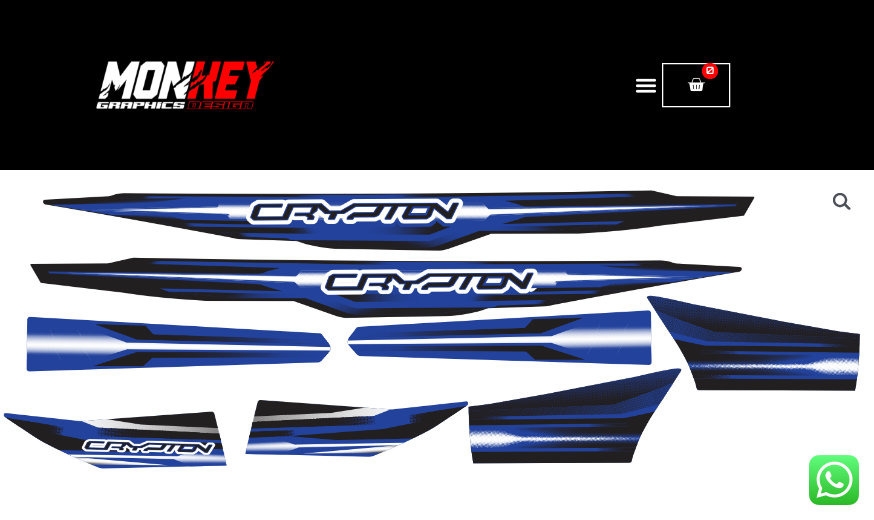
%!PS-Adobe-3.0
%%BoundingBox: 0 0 874 520
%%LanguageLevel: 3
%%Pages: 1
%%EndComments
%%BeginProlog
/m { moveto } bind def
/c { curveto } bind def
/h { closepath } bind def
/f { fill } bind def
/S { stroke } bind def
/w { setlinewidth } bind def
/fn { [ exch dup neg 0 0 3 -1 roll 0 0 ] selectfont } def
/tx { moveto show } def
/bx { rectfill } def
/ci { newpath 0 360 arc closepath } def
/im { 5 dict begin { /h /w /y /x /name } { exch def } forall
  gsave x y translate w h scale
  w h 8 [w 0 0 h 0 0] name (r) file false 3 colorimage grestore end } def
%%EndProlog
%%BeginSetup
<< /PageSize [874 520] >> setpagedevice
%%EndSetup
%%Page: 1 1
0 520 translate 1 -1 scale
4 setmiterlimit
1 setgray
0 0 874 520 bx
0 setgray
0 0 874 170 bx
(image0.raw) 96 61 179 49 im
1 setgray
662.5 63.5 67 43 rectstroke
(image1.raw) 687 77 18 15 im
1 0 0 setrgbcolor
710 71 8 ci f
/Orbitron-SemiBold 10 fn
1 setgray
(0) 706 74 tx
(image2.raw) 635 78 22 15 im
(image3.raw) 3 190 857 279 im
0.294 0.31 0.345 setrgbcolor
2 w
840 200 6 ci S
844.5 204 m 845.5 202.5 847.5 205.5 848 206 c 848.5 206.5 851.5 208.5 850 209.5 c 849 210.5 847 208 846.5 207.5 c 846 207 843.5 205 844.5 204 c h f
(image4.raw) 809 455 50 50 im
showpage
%%EOF
